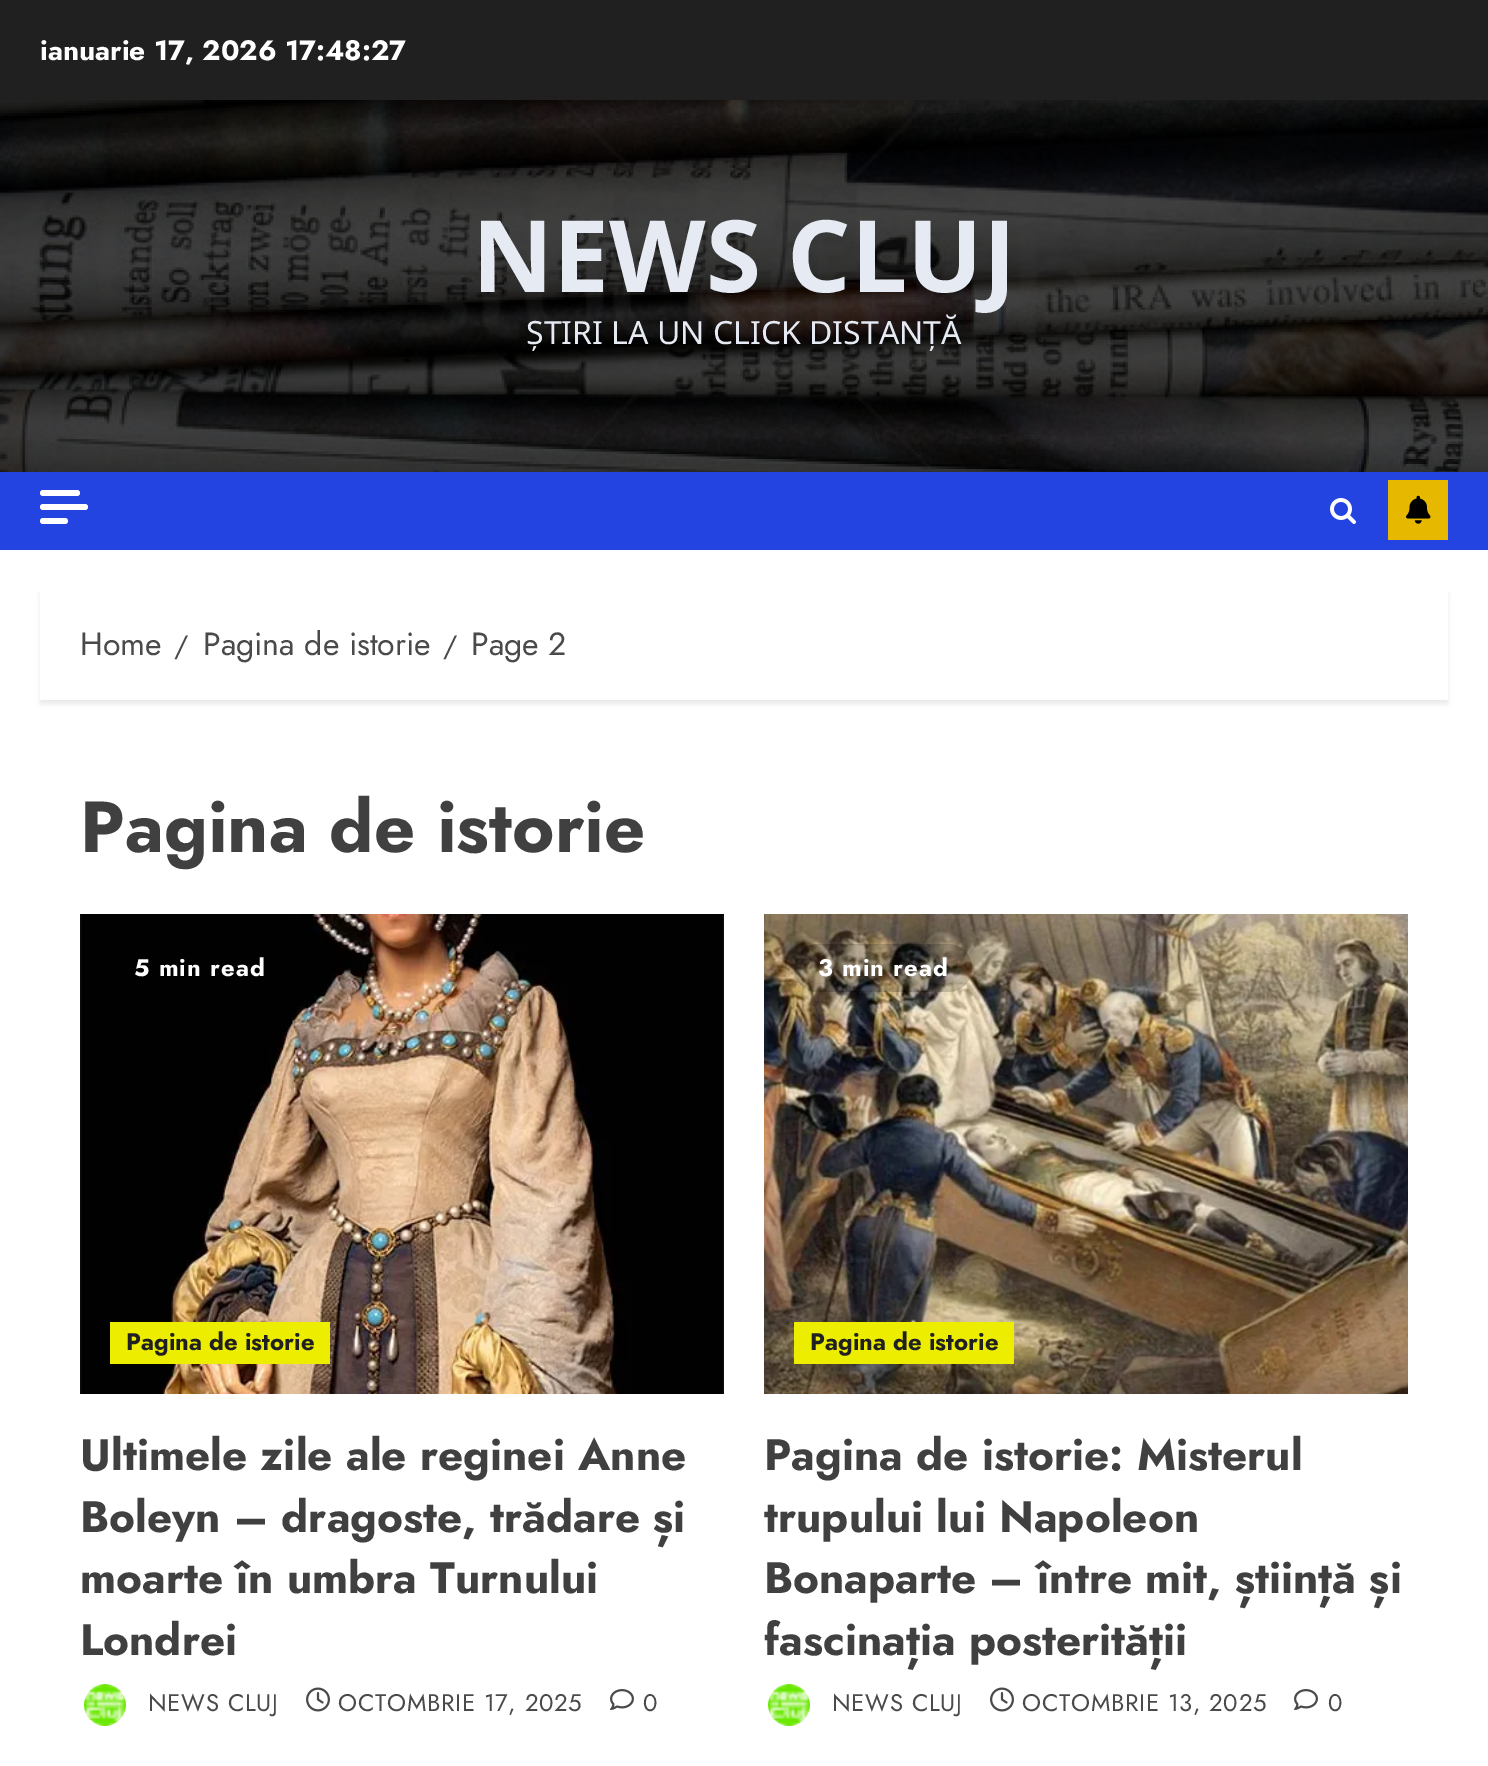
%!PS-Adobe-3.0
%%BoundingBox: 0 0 1488 1766
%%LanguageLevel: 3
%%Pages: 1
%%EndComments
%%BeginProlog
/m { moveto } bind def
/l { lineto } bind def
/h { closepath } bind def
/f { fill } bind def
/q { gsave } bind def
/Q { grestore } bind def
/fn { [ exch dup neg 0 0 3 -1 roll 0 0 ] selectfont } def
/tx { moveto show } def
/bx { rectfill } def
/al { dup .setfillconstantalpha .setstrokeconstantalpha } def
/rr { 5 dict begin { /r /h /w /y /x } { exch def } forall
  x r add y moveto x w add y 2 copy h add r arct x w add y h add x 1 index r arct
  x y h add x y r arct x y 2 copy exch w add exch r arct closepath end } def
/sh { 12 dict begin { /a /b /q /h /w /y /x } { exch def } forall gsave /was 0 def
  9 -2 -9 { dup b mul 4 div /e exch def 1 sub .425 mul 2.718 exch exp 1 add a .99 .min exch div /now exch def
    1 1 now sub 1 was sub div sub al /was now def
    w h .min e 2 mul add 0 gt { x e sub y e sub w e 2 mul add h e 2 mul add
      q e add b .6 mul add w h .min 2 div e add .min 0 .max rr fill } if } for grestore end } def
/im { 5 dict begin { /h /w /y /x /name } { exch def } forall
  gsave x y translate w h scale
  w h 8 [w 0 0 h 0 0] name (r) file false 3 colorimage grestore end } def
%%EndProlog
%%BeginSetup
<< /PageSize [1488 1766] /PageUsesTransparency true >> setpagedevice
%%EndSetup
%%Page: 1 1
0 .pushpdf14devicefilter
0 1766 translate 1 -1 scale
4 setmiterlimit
1 setgray
0 0 1488 1766 bx
0.125 setgray
0 0 1488 100 bx
/Jost-Bold 28 fn
1 setgray
(ianuarie 17, 2026 17:48:27) 40 60 tx
(image0.raw) 0 100 1488 372 im
/NotoSansArabic-Bold 100 fn
0.902 0.918 0.949 setrgbcolor
(NEWS CLUJ) 472 292 tx
/NotoSansArabic-Regular 32 fn
(ȘTIRI LA UN CLICK DISTANȚĂ) 526 344 tx
0.141 0.267 0.886 setrgbcolor
0 472 1488 78 bx
1 setgray
40 490 40 6 3 rr f
40 504 48 6 3 rr f
40 518 28 6 3 rr f
(image1.raw) 1330 498 26 26 im
0.902 0.722 0 setrgbcolor
1388 480 60 60 bx
(image2.raw) 1406 495 25 29 im
q
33 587 m 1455 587 l 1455 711 l 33 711 l h 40 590 m 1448 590 l 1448 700 l 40 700 l h eoclip newpath
0 setgray
40 594 1408 110 0 2 0.08 sh
Q
/Jost-Regular 32 fn
0.29 setgray
(Home) 80 655 tx
/Jost-Regular 28 fn
(/) 174 655 tx
/Jost-Regular 32 fn
(Pagina de istorie) 203 655 tx
/Jost-Regular 28 fn
(/) 443 655 tx
/Jost-Regular 32 fn
(Page 2) 471 655 tx
/Jost-Bold 72 fn
0.251 setgray
(Pagina de istorie) 80 852 tx
(image3.raw) 80 914 644 480 im
/Jost-Bold 24 fn
1 setgray
134 976 m 1 0 (5 min read) ashow
0.929 0.929 0 setrgbcolor
110 1322 220 42 bx
0.125 setgray
(Pagina de istorie) 126 1350 tx
/Jost-Bold 44 fn
0.251 setgray
(Ultimele zile ale reginei Anne) 80 1470 tx
(Boleyn – dragoste, trădare și) 80 1532 tx
(moarte în umbra Turnului) 80 1593 tx
(Londrei) 80 1655 tx
(image4.raw) 84 1684 42 42 im
/Jost-Regular 24 fn
0.29 setgray
148 1711 m 0.75 0 (NEWS CLUJ) ashow
(image5.raw) 306 1687 24 25 im
338 1711 m 0.75 0 (OCTOMBRIE 17, 2025) ashow
(image6.raw) 610 1689 24 21 im
643 1711 m 0.75 0 (0) ashow
(image7.raw) 764 914 644 480 im
0.2 al
0 setgray
794 944 178 48 24 rr f
/Jost-Bold 24 fn
1 al
1 setgray
818 976 m 1 0 (3 min read) ashow
0.929 0.929 0 setrgbcolor
794 1322 220 42 bx
0.125 setgray
(Pagina de istorie) 810 1350 tx
/Jost-Bold 44 fn
0.251 setgray
(Pagina de istorie: Misterul) 764 1470 tx
(trupului lui Napoleon) 764 1532 tx
(Bonaparte – între mit, știință și) 764 1593 tx
(fascinația posterității) 764 1655 tx
(image8.raw) 768 1684 42 42 im
/Jost-Regular 24 fn
0.29 setgray
832 1711 m 0.75 0 (NEWS CLUJ) ashow
(image5.raw) 990 1687 24 25 im
1022 1711 m 0.75 0 (OCTOMBRIE 13, 2025) ashow
(image6.raw) 1294 1689 24 21 im
1328 1711 m 0.75 0 (0) ashow
.poppdf14devicefilter showpage
%%EOF
